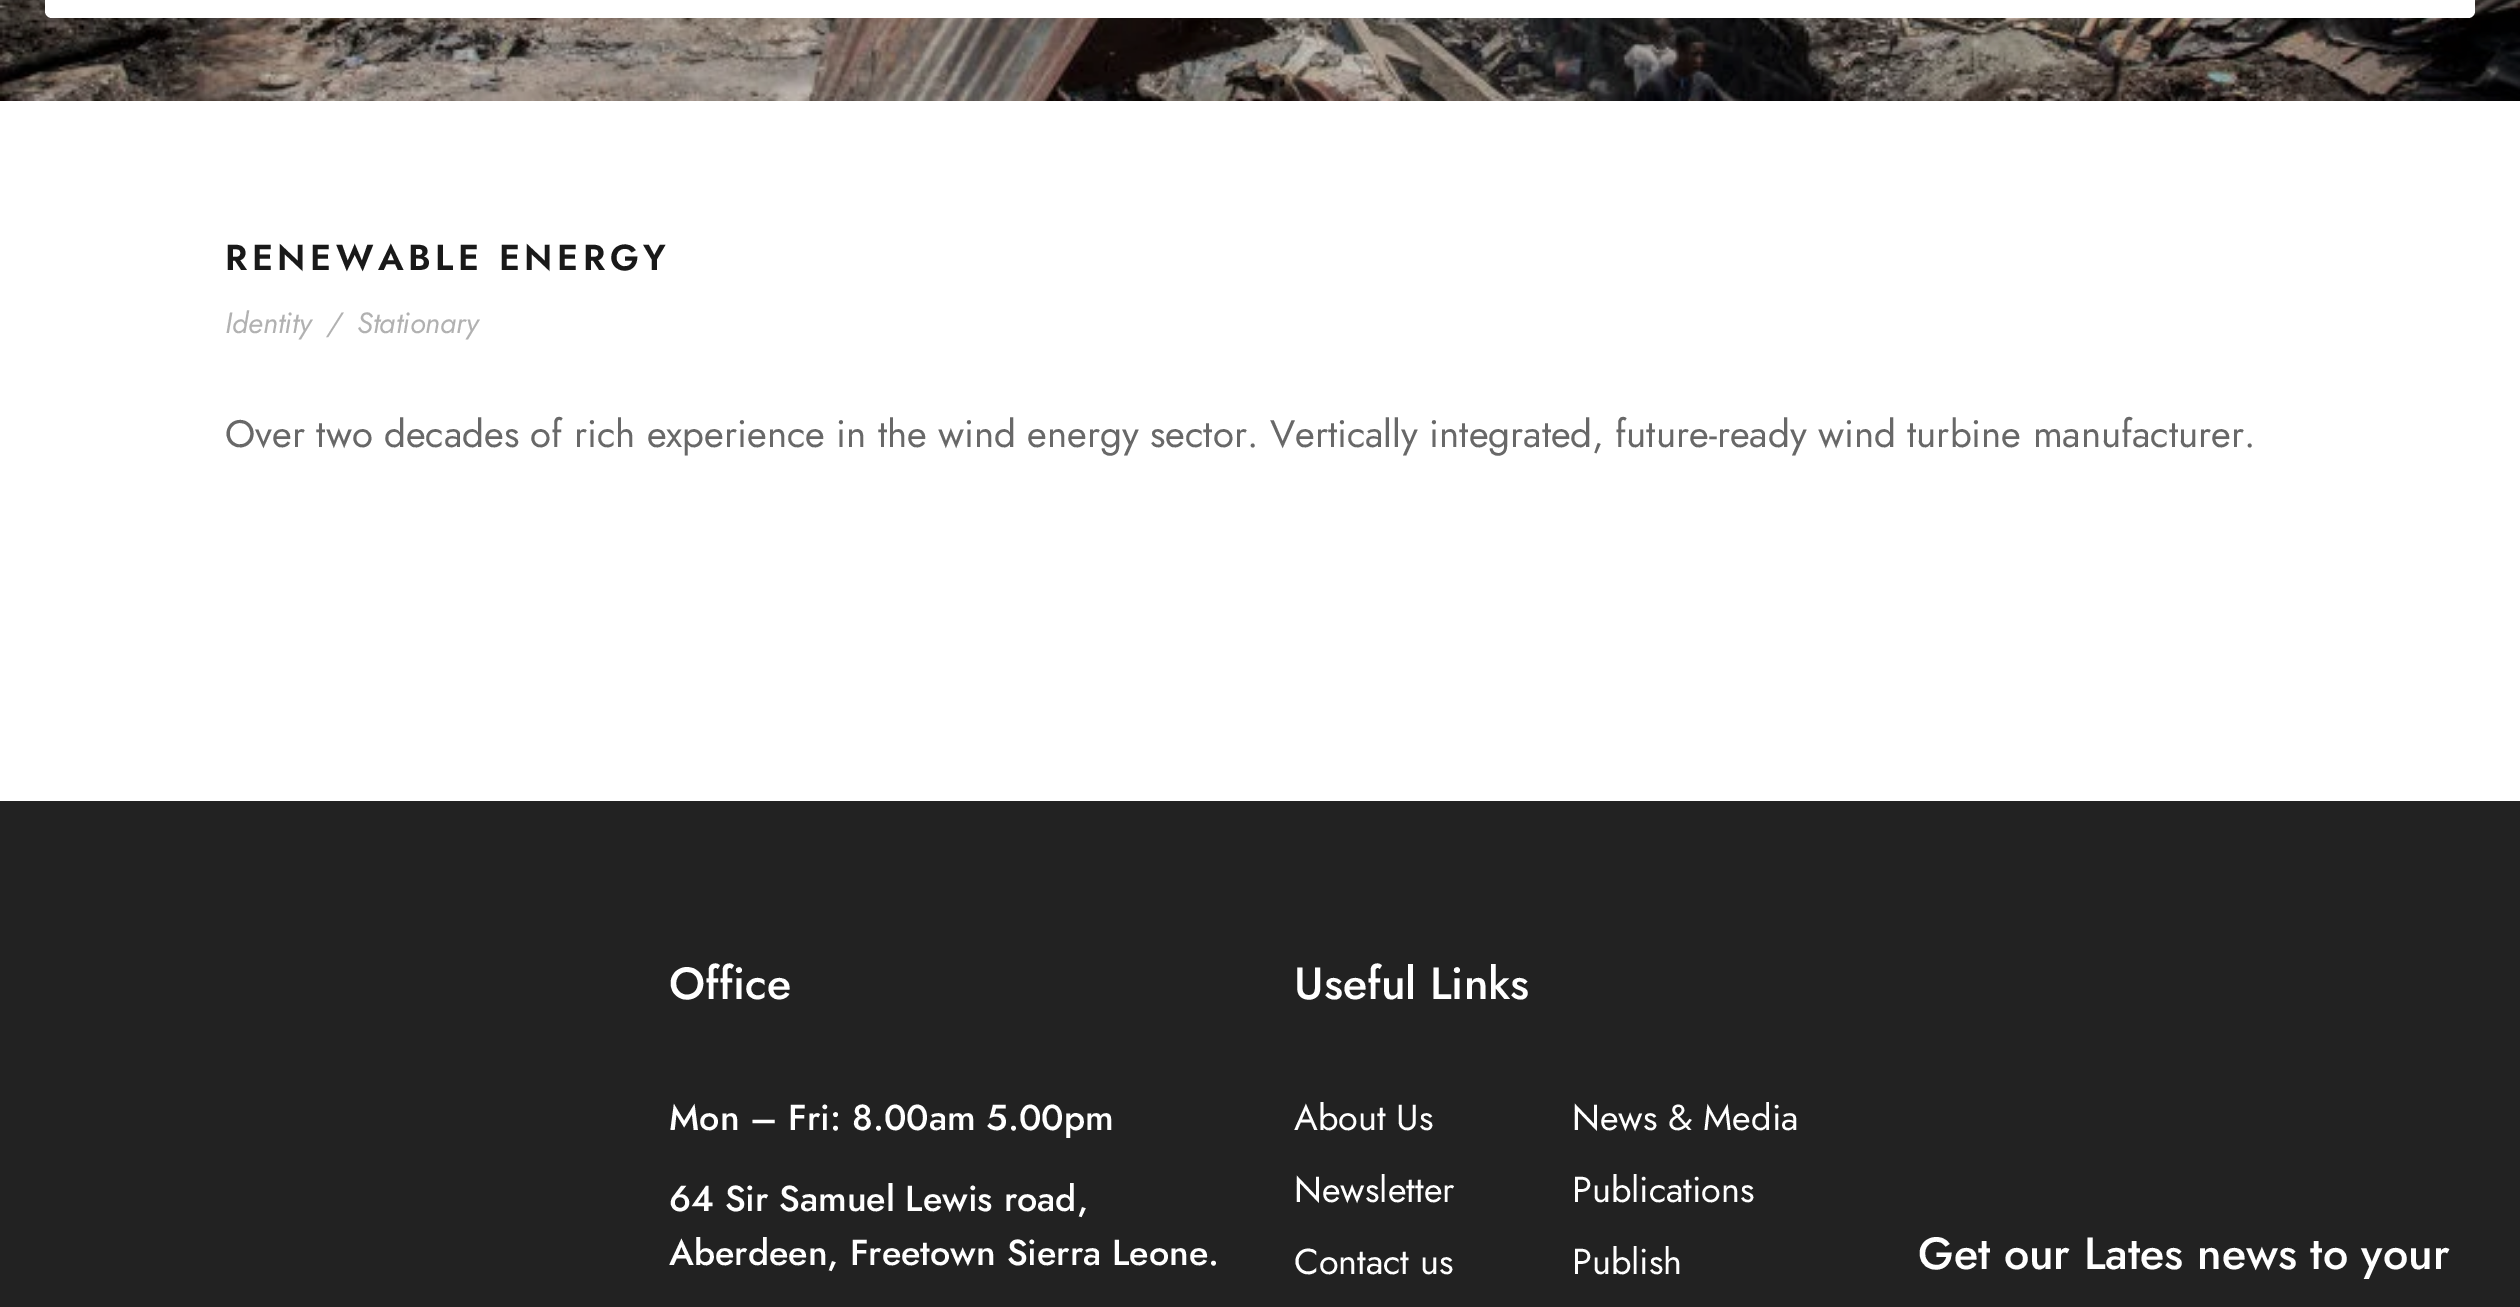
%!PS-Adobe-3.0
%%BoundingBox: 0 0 2520 1307
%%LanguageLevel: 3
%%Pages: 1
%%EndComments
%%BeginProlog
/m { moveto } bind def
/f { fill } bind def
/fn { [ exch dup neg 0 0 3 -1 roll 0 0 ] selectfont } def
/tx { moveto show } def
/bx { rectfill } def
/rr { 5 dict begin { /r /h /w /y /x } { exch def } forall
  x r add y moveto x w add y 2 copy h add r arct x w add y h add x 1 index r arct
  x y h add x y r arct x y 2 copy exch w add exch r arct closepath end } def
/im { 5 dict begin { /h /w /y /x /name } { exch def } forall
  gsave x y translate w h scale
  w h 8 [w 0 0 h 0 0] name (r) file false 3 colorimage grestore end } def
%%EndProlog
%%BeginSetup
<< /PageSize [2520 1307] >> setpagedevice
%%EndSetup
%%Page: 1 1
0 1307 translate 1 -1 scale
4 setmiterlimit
1 setgray
0 0 2520 1307 bx
(image0.raw) 0 0 2520 101 im
45 -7 2430 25 7 rr f
/Jost-SemiBold 36 fn
0.098 setgray
225 270 m 4.5 0 (RENEWABLE ENERGY) ashow
/Jost-Italic 29.25 fn
0.694 setgray
(Identity) 225 333 tx
(/) 327 333 tx
(Stationary) 357 333 tx
/Jost-Regular 38.25 fn
0.408 setgray
(Over two decades of rich experience in the wind energy sector. Vertically integrated, future-ready wind turbine manufacturer.) 225 447 tx
0.133 setgray
0 801 2520 506 bx
/Jost-Medium 45 fn
1 setgray
(Office) 669 999 tx
/Jost-Medium 36 fn
(Mon – Fri: 8.00am 5.00pm) 669 1130 tx
(64 Sir Samuel Lewis road,) 669 1211 tx
(Aberdeen, Freetown Sierra Leone.) 669 1265 tx
/Jost-Medium 45 fn
(Useful Links) 1294 999 tx
/Jost-Regular 36 fn
(About Us) 1294 1130 tx
(News & Media) 1572 1130 tx
(Newsletter) 1294 1202 tx
(Publications) 1572 1202 tx
(Contact us) 1294 1274 tx
(Publish) 1572 1274 tx
/Jost-Medium 45 fn
(Get our Lates news to your) 1918 1269 tx
showpage
%%EOF
